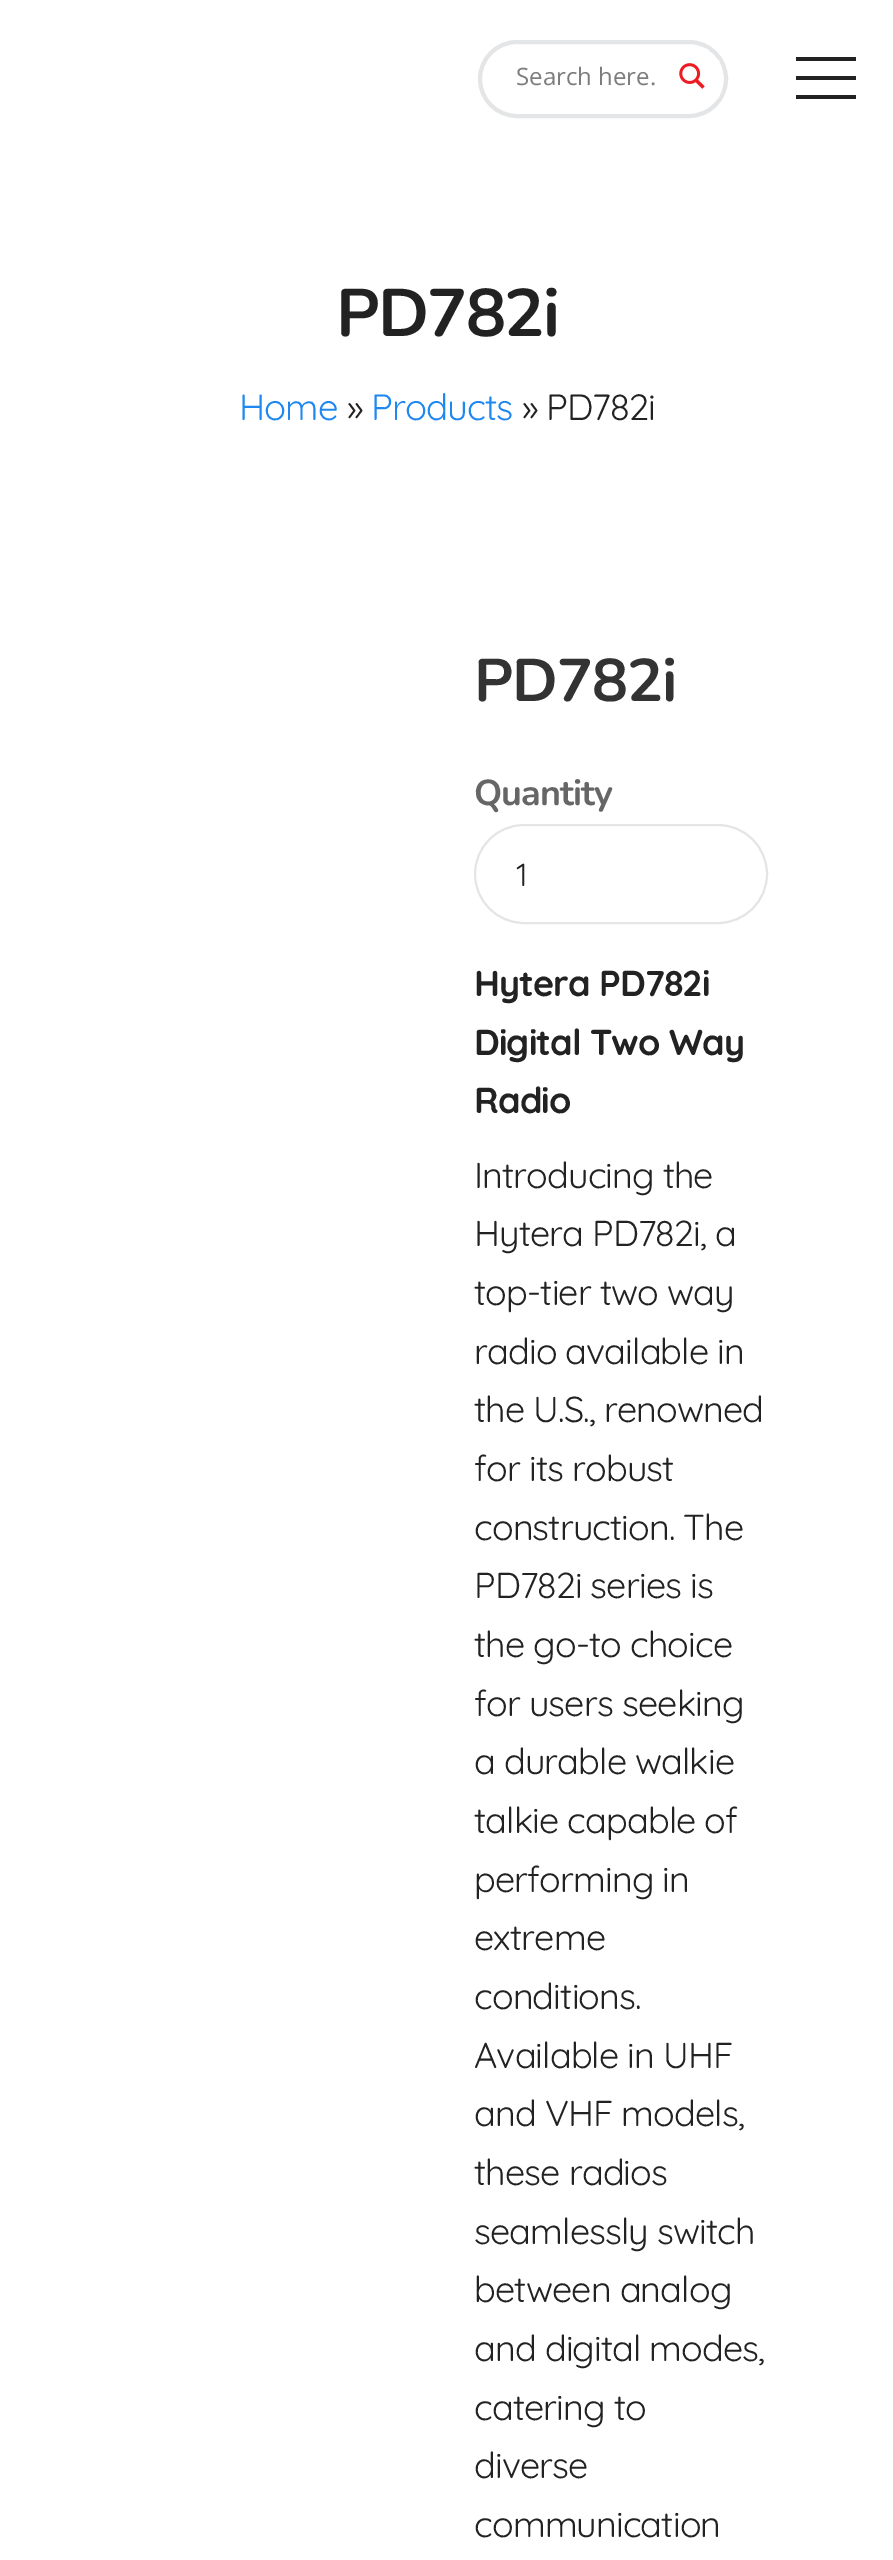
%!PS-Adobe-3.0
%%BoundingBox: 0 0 893 2560
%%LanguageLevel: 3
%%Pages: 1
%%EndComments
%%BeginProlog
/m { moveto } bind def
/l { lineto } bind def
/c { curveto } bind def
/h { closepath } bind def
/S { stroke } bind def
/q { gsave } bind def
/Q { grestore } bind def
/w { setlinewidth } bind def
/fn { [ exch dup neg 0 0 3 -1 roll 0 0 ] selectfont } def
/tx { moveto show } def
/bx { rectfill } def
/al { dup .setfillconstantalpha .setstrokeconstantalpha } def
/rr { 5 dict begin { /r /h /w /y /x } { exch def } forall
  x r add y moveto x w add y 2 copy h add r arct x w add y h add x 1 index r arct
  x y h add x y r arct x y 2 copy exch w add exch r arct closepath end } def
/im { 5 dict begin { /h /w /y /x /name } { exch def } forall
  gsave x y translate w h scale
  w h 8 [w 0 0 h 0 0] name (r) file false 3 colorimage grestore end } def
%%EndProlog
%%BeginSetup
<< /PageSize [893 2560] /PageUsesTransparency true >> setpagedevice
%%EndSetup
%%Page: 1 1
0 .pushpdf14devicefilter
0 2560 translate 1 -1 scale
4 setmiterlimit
1 setgray
0 0 893 2560 bx
0.894 0.898 0.906 setrgbcolor
4 w
480 42 246 74 37 rr S
/OpenSans-Regular 24 fn
0.49 setgray
(Search here.) 516 85 tx
q
664 48 56 56 rectclip
0.64 al
1 setgray
662 50 m 709 50 l 703 46 696 44 689 44 c 517 44 l 498 44 482 60 482 79 c 482 98 498 114 517 114 c 689 114 l 697 114 705 111 711 106 c 662 106 l h 718 59 m 718 99 l 726 87 726 71 718 59 c h eofill
Q
(image0.raw) 679 63 26 26 im
0.133 setgray
796 57 60 4 bx
796 76 60 4 bx
796 95 60 4 bx
/Nunito-Bold 67 fn
336 336 m -1.75 0 (PD782i) ashow
/Quicksand-Regular 36.5 fn
0.118 0.529 0.941 setrgbcolor
239 420 m -1 0 (Home) ashow
0.133 setgray
347 420 m -1 0 (») ashow
0.118 0.529 0.941 setrgbcolor
371 420 m -1 0 (Products) ashow
0.133 setgray
522 420 m -1 0 (» PD782i) ashow
/Nunito-Bold 60 fn
0.2 setgray
474 701 m -1 0 (PD782i) ashow
/Nunito-Bold 36 fn
0.4 setgray
474 805 m -1 0 (Quantity) ashow
0.898 setgray
2 w
475 825 292 98 49 rr S
/Quicksand-Regular 32 fn
0.133 setgray
(1) 516 886 tx
/Quicksand-Bold 36 fn
474 996 m -0.9 0 (Hytera PD782i) ashow
474 1055 m -0.9 0 (Digital Two Way) ashow
474 1113 m -0.9 0 (Radio) ashow
/Quicksand-Regular 36 fn
474 1188 m -0.9 0 (Introducing the) ashow
474 1246 m -0.9 0 (Hytera PD782i, a) ashow
474 1305 m -0.9 0 (top-tier two way) ashow
474 1364 m -0.9 0 (radio available in) ashow
474 1422 m -0.9 0 (the U.S., renowned) ashow
474 1481 m -0.9 0 (for its robust) ashow
474 1540 m -0.9 0 (construction. The) ashow
474 1598 m -0.9 0 (PD782i series is) ashow
474 1657 m -0.9 0 (the go-to choice) ashow
474 1716 m -0.9 0 (for users seeking) ashow
474 1774 m -0.9 0 (a durable walkie) ashow
474 1833 m -0.9 0 (talkie capable of) ashow
474 1892 m -0.9 0 (performing in) ashow
474 1950 m -0.9 0 (extreme) ashow
474 2009 m -0.9 0 (conditions.) ashow
474 2068 m -0.9 0 (Available in UHF) ashow
474 2126 m -0.9 0 (and VHF models,) ashow
474 2185 m -0.9 0 (these radios) ashow
474 2244 m -0.9 0 (seamlessly switch) ashow
474 2302 m -0.9 0 (between analog) ashow
474 2361 m -0.9 0 (and digital modes,) ashow
474 2420 m -0.9 0 (catering to) ashow
474 2478 m -0.9 0 (diverse) ashow
474 2537 m -0.9 0 (communication) ashow
.poppdf14devicefilter showpage
%%EOF
